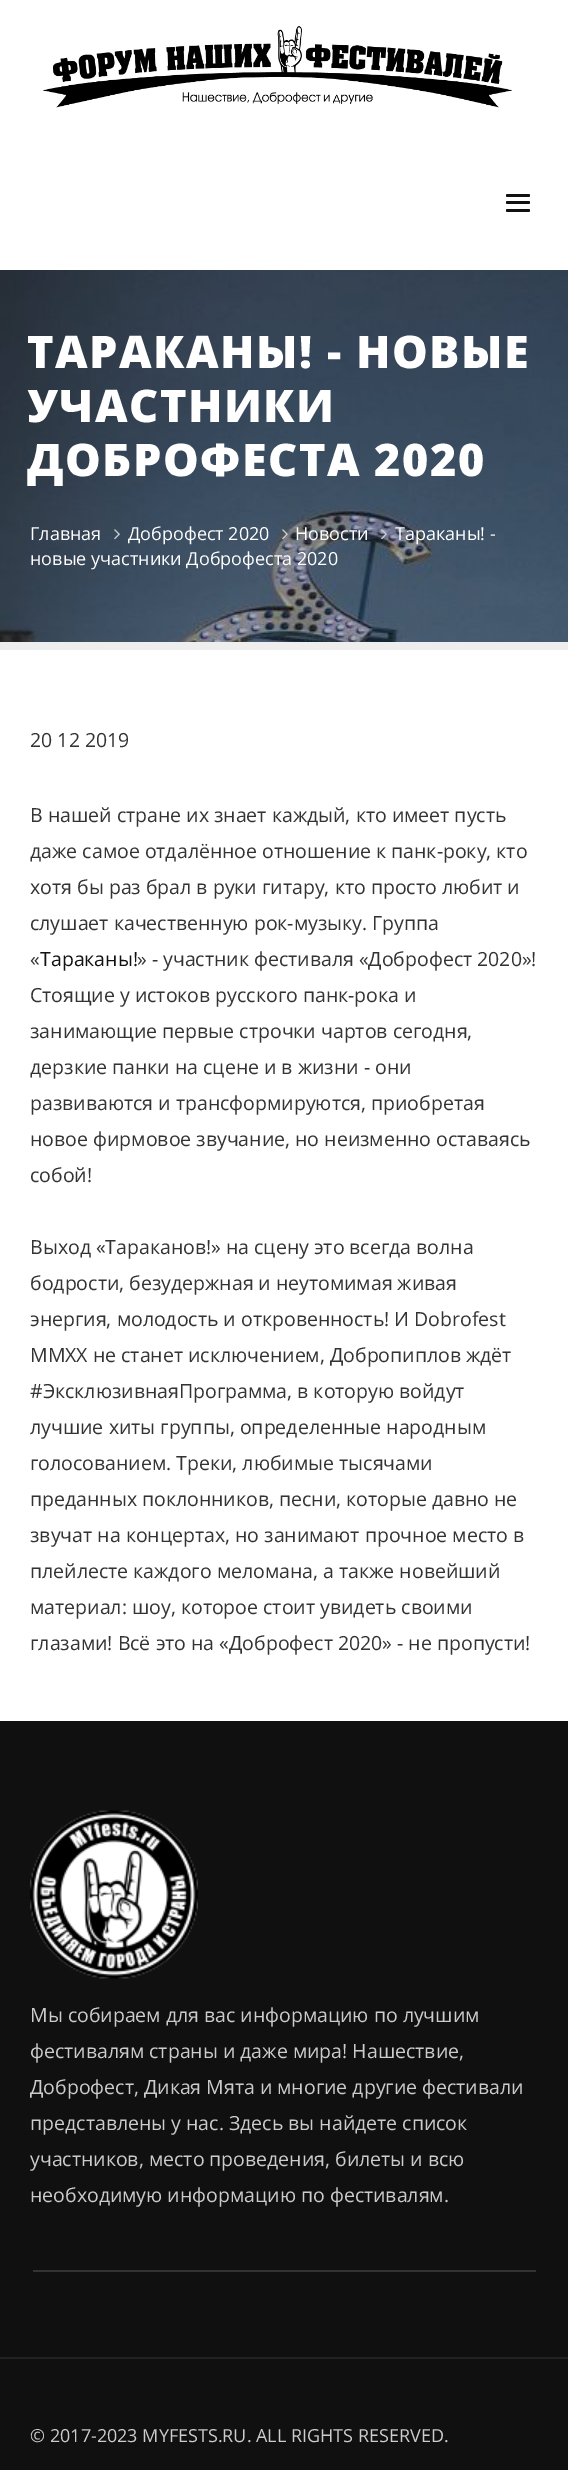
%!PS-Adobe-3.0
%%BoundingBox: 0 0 568 2470
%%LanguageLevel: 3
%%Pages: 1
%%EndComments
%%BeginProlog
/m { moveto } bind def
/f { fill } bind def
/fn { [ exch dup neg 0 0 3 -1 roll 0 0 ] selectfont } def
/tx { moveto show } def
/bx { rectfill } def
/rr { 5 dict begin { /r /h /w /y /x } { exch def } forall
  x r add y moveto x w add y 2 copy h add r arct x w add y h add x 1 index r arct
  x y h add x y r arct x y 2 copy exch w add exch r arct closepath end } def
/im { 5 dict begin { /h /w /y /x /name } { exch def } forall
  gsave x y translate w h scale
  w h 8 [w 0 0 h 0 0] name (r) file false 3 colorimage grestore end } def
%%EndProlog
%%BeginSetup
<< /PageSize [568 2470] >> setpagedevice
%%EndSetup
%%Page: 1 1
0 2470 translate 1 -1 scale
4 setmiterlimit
1 setgray
0 0 568 2470 bx
(image0.raw) 43 26 470 82 im
0.067 setgray
506 201 24 3 1.5 rr f
506 194 24 3 1.5 rr f
506 209 24 3 1.5 rr f
(image1.raw) 0 270 568 372 im
0.933 setgray
0 642 568 8 bx
/OpenSans-ExtraBold 45 fn
1 setgray
27 368 m 1.5 0 (ТАРАКАНЫ! - НОВЫЕ) ashow
27 422 m 1.5 0 (УЧАСТНИКИ) ashow
27 476 m 1.5 0 (ДОБРОФЕСТА 2020) ashow
/OpenSans-Regular 18 fn
(Главная) 30 540 tx
(image2.raw) 114 529 6 11 im
(Доброфест 2020) 128 540 tx
(image3.raw) 282 529 6 11 im
(Новости) 295 540 tx
(image4.raw) 381 529 6 11 im
(Тараканы! -) 395 540 tx
(новые участники Доброфеста 2020) 30 565 tx
/OpenSans-Regular 19.5 fn
0.2 setgray
(20 12 2019) 30 747 tx
(В нашей стране их знает каждый, кто имеет пусть) 30 822 tx
(даже самое отдалённое отношение к панк-року, кто) 30 858 tx
(хотя бы раз брал в руки гитару, кто просто любит и) 30 894 tx
(слушает качественную рок-музыку. Группа) 30 930 tx
(«) 30 966 tx
0.067 setgray
(Тараканы!) 40 966 tx
0.2 setgray
(» - участник фестиваля «Доброфест 2020»!) 137 966 tx
(Стоящие у истоков русского панк-рока и) 30 1002 tx
(занимающие первые строчки чартов сегодня,) 30 1038 tx
(дерзкие панки на сцене и в жизни - они) 30 1074 tx
(развиваются и трансформируются, приобретая) 30 1110 tx
(новое фирмовое звучание, но неизменно оставаясь) 30 1146 tx
(собой!) 30 1182 tx
(Выход «Тараканов!» на сцену это всегда волна) 30 1254 tx
(бодрости, безудержная и неутомимая живая) 30 1290 tx
(энергия, молодость и откровенность! И Dobrofest) 30 1326 tx
(MMXX не станет исключением, Добропиплов ждёт) 30 1362 tx
(#ЭксклюзивнаяПрограмма, в которую войдут) 30 1398 tx
(лучшие хиты группы, определенные народным) 30 1434 tx
(голосованием. Треки, любимые тысячами) 30 1470 tx
(преданных поклонников, песни, которые давно не) 30 1506 tx
(звучат на концертах, но занимают прочное место в) 30 1542 tx
(плейлесте каждого меломана, а также новейший) 30 1578 tx
(материал: шоу, которое стоит увидеть своими) 30 1614 tx
(глазами! Всё это на «Доброфест 2020» - не пропусти!) 30 1650 tx
0.063 setgray
0 1721 568 749 bx
(image5.raw) 30 1810 168 169 im
0.8 setgray
(Мы собираем для вас информацию по лучшим) 30 2022 tx
(фестивалям страны и даже мира! Нашествие,) 30 2058 tx
(Доброфест, Дикая Мята и многие другие фестивали) 30 2094 tx
(представлены у нас. Здесь вы найдете список) 30 2130 tx
(участников, место проведения, билеты и всю) 30 2166 tx
(необходимую информацию по фестивалям.) 30 2202 tx
0.2 setgray
33 2270 503 2 bx
0.133 setgray
0 2357 568 2 bx
/OpenSans-Regular 18 fn
0.8 setgray
(© 2017-2023 MYFESTS.RU. ALL RIGHTS RESERVED.) 30 2442 tx
showpage
%%EOF
